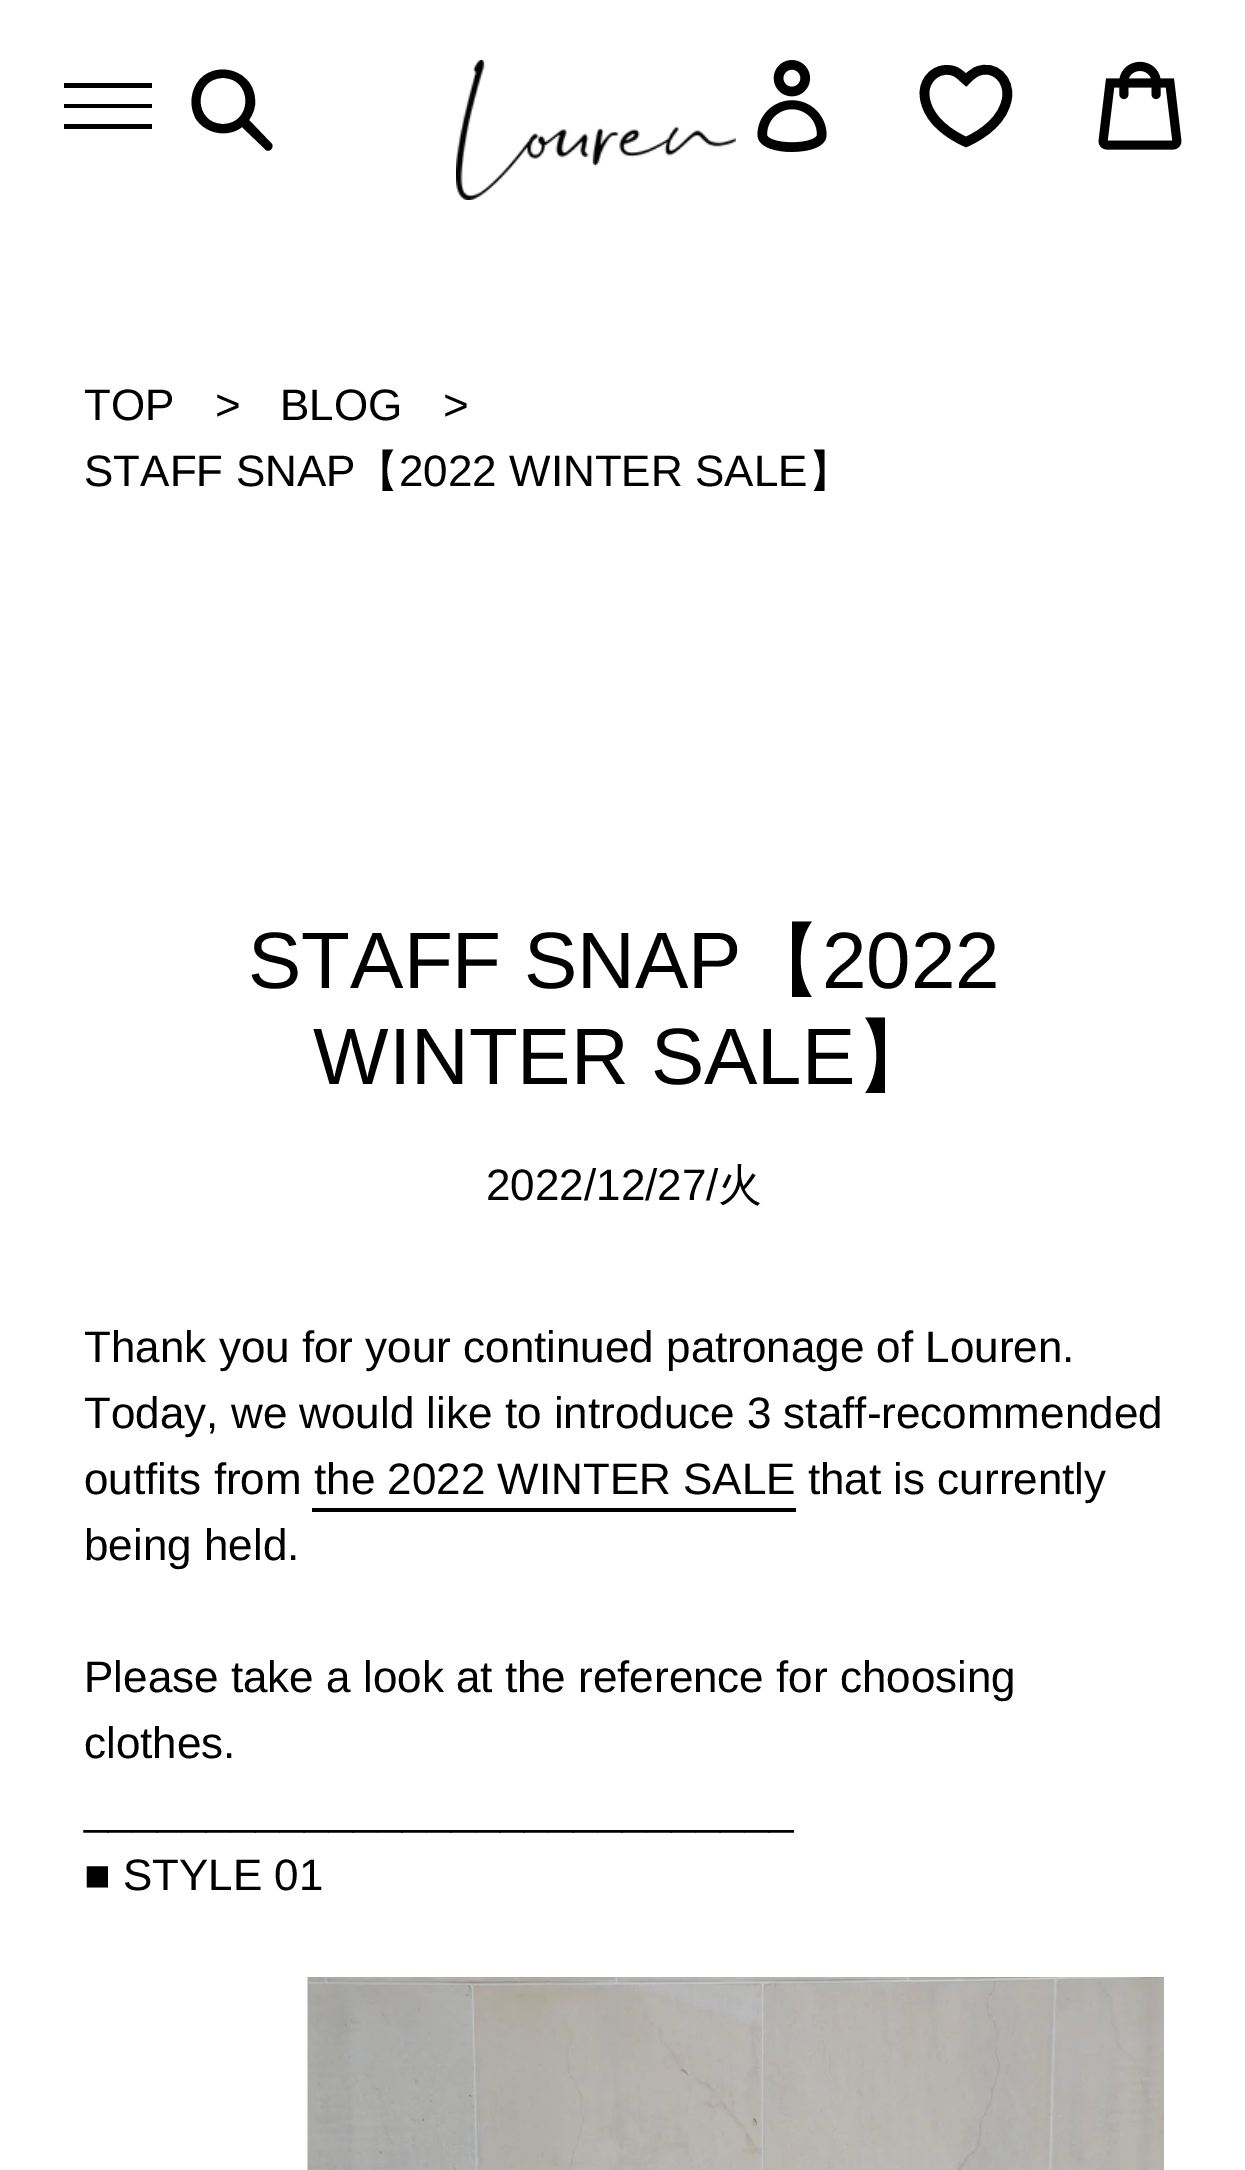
%!PS-Adobe-3.0
%%BoundingBox: 0 0 1245 2170
%%LanguageLevel: 3
%%Pages: 1
%%EndComments
%%BeginProlog
/m { moveto } bind def
/l { lineto } bind def
/c { curveto } bind def
/h { closepath } bind def
/f { fill } bind def
/S { stroke } bind def
/w { setlinewidth } bind def
/fn { [ exch dup neg 0 0 3 -1 roll 0 0 ] selectfont } def
/tx { moveto show } def
/bx { rectfill } def
/im { 5 dict begin { /h /w /y /x /name } { exch def } forall
  gsave x y translate w h scale
  w h 8 [w 0 0 h 0 0] name (r) file false 3 colorimage grestore end } def
%%EndProlog
%%BeginSetup
<< /PageSize [1245 2170] >> setpagedevice
%%EndSetup
%%Page: 1 1
0 2170 translate 1 -1 scale
4 setmiterlimit
1 setgray
0 0 1245 2170 bx
0 setgray
64 83 88 5 bx
64 104 88 4 bx
64 124 88 5 bx
271 143 m 249 120 l 253 114 256 107 255 99 c 253 66 206 58 194 89 c 190 99 191 110 196 119 c 206 134 228 138 242 127 c 266 150 l 270 153 275 146 271 143 c h 223 124 m 193 124 193 78 223 78 c 253 78 253 124 223 124 c h f
(image0.raw) 757 60 70 92 im
9.6 w
966 142 m 949.5 134.5 931 121.5 926 103 c 924.5 98.5 924 93 925 88.5 c 927.5 74.5 942 66 955 71.5 c 959.5 73.5 962.5 77 966 80 c 969 77 972.5 73.5 977 71.5 c 994.5 64 1010 80 1007 98 c 1004 119 984 134 966 142 c h S
(image1.raw) 1098 61 84 89 im
(image2.raw) 456 60 280 140 im
/LiberationSans-Regular 44 fn
(TOP) 84 420 tx
(>) 215 420 tx
(BLOG) 280 420 tx
(>) 443 420 tx
(STAFF SNAP) 84 486 tx
/WenQuanYiZenHei-Medium 44 fn
(【) 355 486 tx
/LiberationSans-Regular 44 fn
(2022 WINTER SALE) 399 486 tx
/WenQuanYiZenHei-Medium 44 fn
(】) 808 486 tx
/LiberationSans-Regular 80 fn
(STAFF SNAP) 248 988 tx
/WenQuanYiZenHei-Medium 80 fn
(【) 742 988 tx
/LiberationSans-Regular 80 fn
(2022) 822 988 tx
(WINTER SALE) 313 1084 tx
/WenQuanYiZenHei-Medium 80 fn
(】) 855 1084 tx
/LiberationSans-Regular 44 fn
(2022/12/27/) 486 1200 tx
/WenQuanYiZenHei-Medium 44 fn
(火) 718 1200 tx
/LiberationSans-Regular 44 fn
(Thank you for your continued patronage of Louren.) 84 1362 tx
(Today, we would like to introduce 3 staff-recommended) 84 1428 tx
(outfits from the 2022 WINTER SALE that is currently) 84 1494 tx
312 1508 484 4 bx
(being held.) 84 1560 tx
(Please take a look at the reference for choosing) 84 1692 tx
(clothes.) 84 1758 tx
(_____________________________) 84 1824 tx
(■ STYLE 01) 84 1890 tx
(image3.raw) 306 1976 858 194 im
showpage
%%EOF
